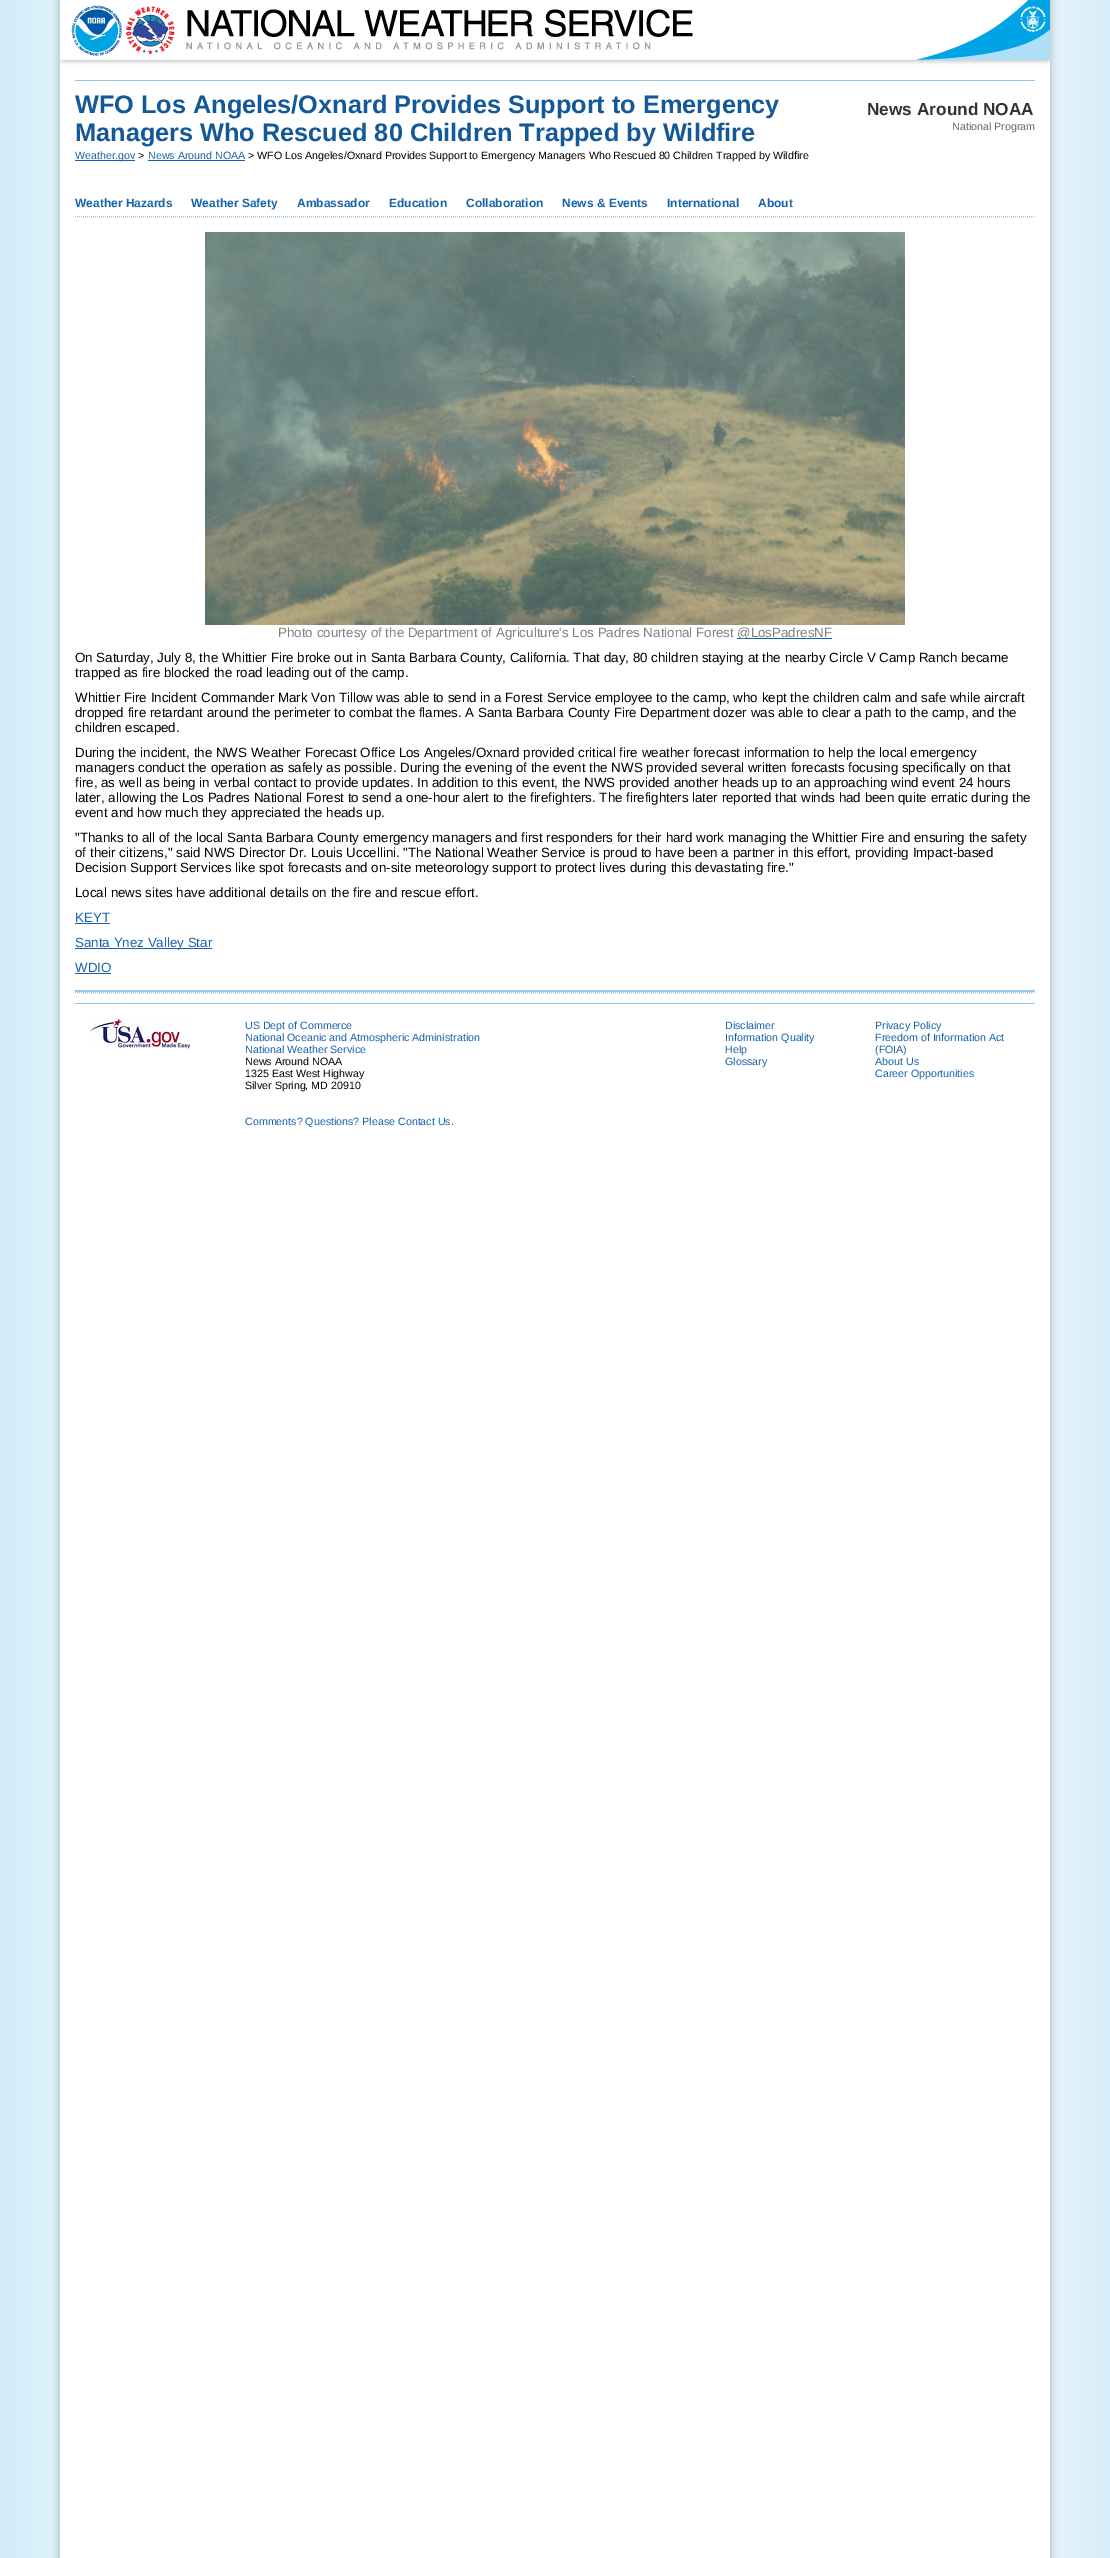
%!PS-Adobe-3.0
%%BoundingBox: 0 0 1110 2558
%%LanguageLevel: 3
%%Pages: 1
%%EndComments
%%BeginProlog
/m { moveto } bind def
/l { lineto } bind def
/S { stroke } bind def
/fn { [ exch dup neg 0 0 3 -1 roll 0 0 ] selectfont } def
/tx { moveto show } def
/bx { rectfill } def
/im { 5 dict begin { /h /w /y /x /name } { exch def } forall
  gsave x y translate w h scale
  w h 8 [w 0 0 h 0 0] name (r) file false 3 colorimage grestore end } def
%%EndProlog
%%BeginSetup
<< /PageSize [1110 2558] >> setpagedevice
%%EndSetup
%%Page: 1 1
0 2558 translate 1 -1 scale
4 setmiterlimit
1 setgray
0 0 1110 2558 bx
(image0.raw) 0 1157 1110 1401 im
(image1.raw) 0 0 1110 60 im
(image2.raw) 71 5 622 51 im
(image3.raw) 915 0 135 60 im
(image4.raw) 0 60 1110 10 im
(image5.raw) 60 60 990 5 im
(image6.raw) 0 70 1110 934 im
0.58 0.776 0.937 setrgbcolor
75 80 960 1 bx
75 990 960 2 bx
/LiberationSans-Bold 25.3 fn
0.075 0.345 0.592 setrgbcolor
(WFO Los Angeles/Oxnard Provides Support to Emergency) 75 113 tx
(Managers Who Rescued 80 Children Trapped by Wildfire) 75 141 tx
0.09 0.388 0.671 setrgbcolor
75 160 60 1 bx
/LiberationSans-Regular 10.67 fn
(Weather.gov) 75 159 tx
0 setgray
(>) 138 159 tx
0.09 0.388 0.671 setrgbcolor
(News Around NOAA) 148 159 tx
148 160 97 1 bx
0 setgray
(> WFO Los Angeles/Oxnard Provides Support to Emergency Managers Who Rescued 80 Children Trapped by Wildfire) 248 159 tx
/LiberationSans-Bold 17.25 fn
0.2 setgray
(News Around NOAA) 867 115 tx
/LiberationSans-Regular 10.67 fn
0.4 setgray
(National Program) 952 130 tx
0.58 0.776 0.937 setrgbcolor
[1 1] 0 setdash
75 216.5 m 1035 216.5 l S
/LiberationSans-Bold 12 fn
0.09 0.388 0.671 setrgbcolor
(Weather Hazards) 75 207 tx
(Weather Safety) 191 207 tx
(Ambassador) 297 207 tx
(Education) 389 207 tx
(Collaboration) 466 207 tx
(News & Events) 562 207 tx
(International) 667 207 tx
(About) 758 207 tx
(image7.raw) 205 232 700 393 im
/LiberationSans-Regular 13.33 fn
0.502 setgray
(Photo courtesy of the Department of Agriculture's Los Padres National Forest) 278 637 tx
0.09 0.388 0.671 setrgbcolor
737 638 95 1 bx
0.502 setgray
(@LosPadresNF) 737 637 tx
0 setgray
(On Saturday, July 8, the Whittier Fire broke out in Santa Barbara County, California. That day, 80 children staying at the nearby Circle V Camp Ranch became) 75 662 tx
(trapped as fire blocked the road leading out of the camp.) 75 677 tx
(Whittier Fire Incident Commander Mark Von Tillow was able to send in a Forest Service employee to the camp, who kept the children calm and safe while aircraft) 75 702 tx
(dropped fire retardant around the perimeter to combat the flames. A Santa Barbara County Fire Department dozer was able to clear a path to the camp, and the) 75 717 tx
(children escaped.) 75 732 tx
(During the incident, the NWS Weather Forecast Office Los Angeles/Oxnard provided critical fire weather forecast information to help the local emergency) 75 757 tx
(managers conduct the operation as safely as possible. During the evening of the event the NWS provided several written forecasts focusing specifically on that) 75 772 tx
(fire, as well as being in verbal contact to provide updates. In addition to this event, the NWS provided another heads up to an approaching wind event 24 hours) 75 787 tx
(later, allowing the Los Padres National Forest to send a one-hour alert to the firefighters. The firefighters later reported that winds had been quite erratic during the) 75 802 tx
(event and how much they appreciated the heads up.) 75 817 tx
("Thanks to all of the local Santa Barbara County emergency managers and first responders for their hard work managing the Whittier Fire and ensuring the safety) 75 842 tx
(of their citizens," said NWS Director Dr. Louis Uccellini. "The National Weather Service is proud to have been a partner in this effort, providing Impact-based) 75 857 tx
(Decision Support Services like spot forecasts and on-site meteorology support to protect lives during this devastating fire.") 75 872 tx
(Local news sites have additional details on the fire and rescue effort.) 75 897 tx
0.09 0.388 0.671 setrgbcolor
(KEYT) 75 922 tx
75 923 35 1 bx
75 948 137 1 bx
(Santa Ynez Valley Star) 75 947 tx
(WDIO) 75 972 tx
75 973 36 1 bx
0.58 0.776 0.937 setrgbcolor
75 992.5 m 1035 992.5 l S
75 1003 960 1 bx
(image4.raw) 0 1147 1110 10 im
(image8.raw) 0 1004 1110 143 im
(image9.raw) 90 1019 100 30 im
/LiberationSans-Regular 10.67 fn
0.09 0.388 0.671 setrgbcolor
(US Dept of Commerce) 245 1029 tx
(National Oceanic and Atmospheric Administration) 245 1041 tx
(National Weather Service) 245 1053 tx
0 setgray
(News Around NOAA) 245 1065 tx
(1325 East West Highway) 245 1077 tx
(Silver Spring, MD 20910) 245 1089 tx
0.09 0.388 0.671 setrgbcolor
(Comments? Questions? Please Contact Us.) 245 1125 tx
(Disclaimer) 725 1029 tx
(Information Quality) 725 1041 tx
(Help) 725 1053 tx
(Glossary) 725 1065 tx
(Privacy Policy) 875 1029 tx
(Freedom of Information Act) 875 1041 tx
(\(FOIA\)) 875 1053 tx
(About Us) 875 1065 tx
(Career Opportunities) 875 1077 tx
showpage
%%EOF
